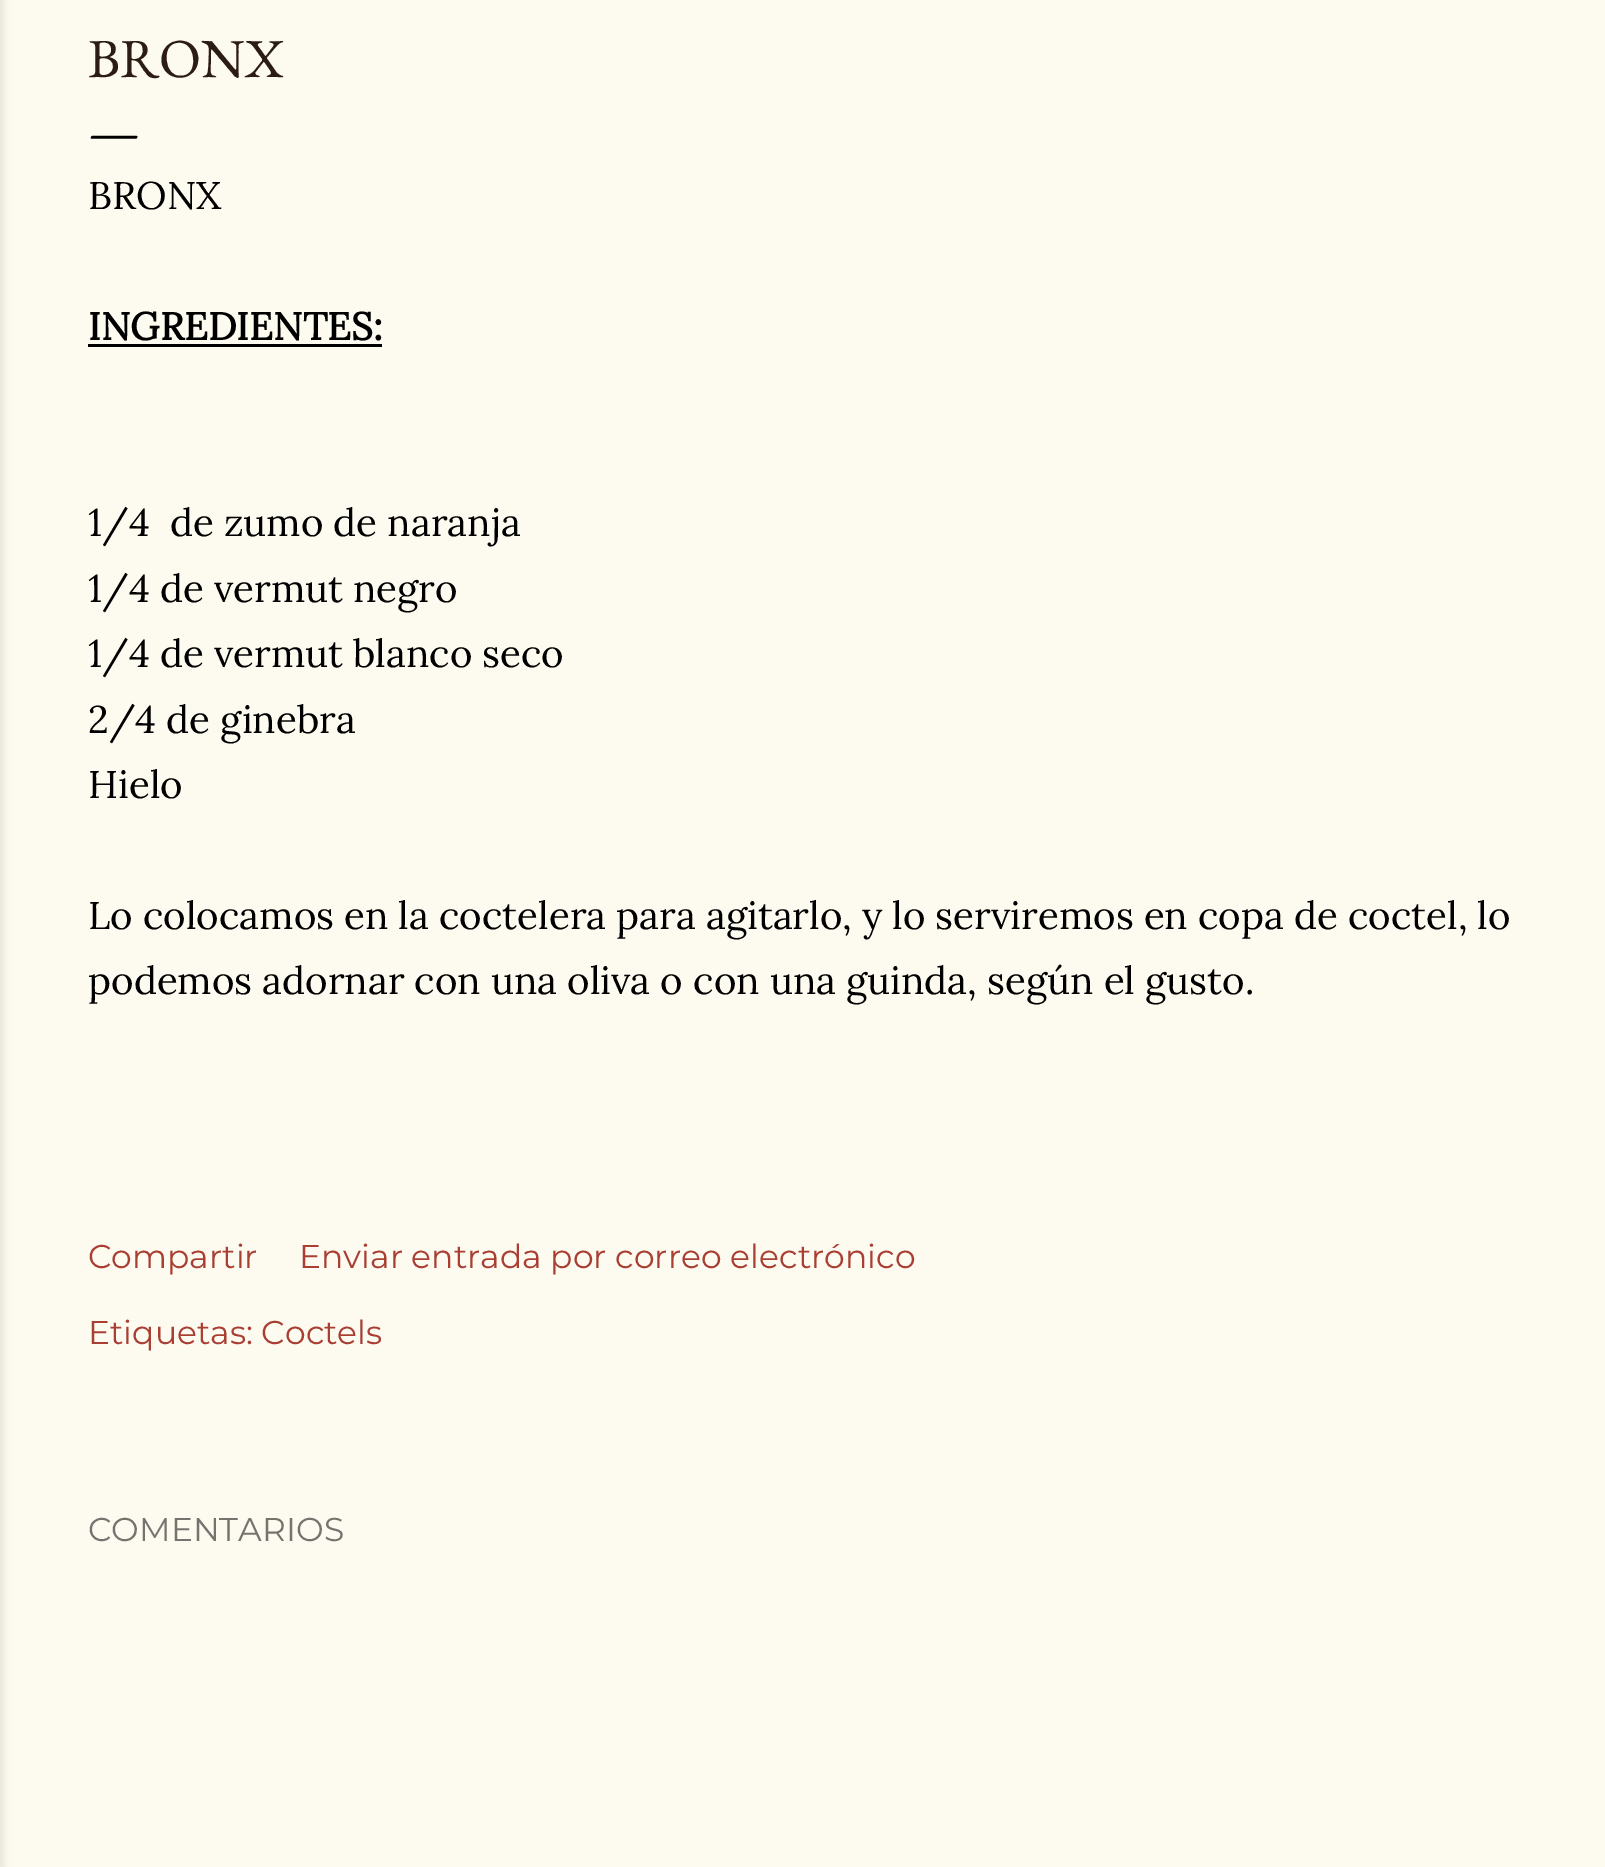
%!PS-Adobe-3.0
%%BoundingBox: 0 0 1605 1867
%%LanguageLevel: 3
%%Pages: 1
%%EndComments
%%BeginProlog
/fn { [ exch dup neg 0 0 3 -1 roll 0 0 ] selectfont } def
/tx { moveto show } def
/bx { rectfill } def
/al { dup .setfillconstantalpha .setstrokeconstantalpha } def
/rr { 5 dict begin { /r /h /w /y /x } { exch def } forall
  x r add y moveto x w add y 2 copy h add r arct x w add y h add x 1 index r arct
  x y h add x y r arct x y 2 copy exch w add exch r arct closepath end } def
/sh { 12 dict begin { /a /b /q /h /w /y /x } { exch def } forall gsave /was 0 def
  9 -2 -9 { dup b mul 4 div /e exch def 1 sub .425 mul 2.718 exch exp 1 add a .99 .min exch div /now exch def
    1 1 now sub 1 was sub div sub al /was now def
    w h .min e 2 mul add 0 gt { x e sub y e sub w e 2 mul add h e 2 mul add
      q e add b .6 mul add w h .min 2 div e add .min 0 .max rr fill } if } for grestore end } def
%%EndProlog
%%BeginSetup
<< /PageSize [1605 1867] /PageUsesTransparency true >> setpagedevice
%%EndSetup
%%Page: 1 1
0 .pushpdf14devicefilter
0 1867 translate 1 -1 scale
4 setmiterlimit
0.992 0.98 0.941 setrgbcolor
0 0 1605 1867 bx
0 setgray
-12 0 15 1867 0 4 0.1 sh
/EBGaramond-Regular 55 fn
0.173 0.114 0.078 setrgbcolor
(BRONX) 88 77 tx
0 setgray
(—) 88 149 tx
/Lora-Regular 38.5 fn
(BRONX) 88 209 tx
/Lora-Bold 38.5 fn
(INGREDIENTES:) 88 340 tx
88 344 294 3 bx
/Lora-Regular 38.5 fn
(1/4  de zumo de naranja) 88 536 tx
(1/4 de vermut negro) 88 602 tx
(1/4 de vermut blanco seco) 88 667 tx
(2/4 de ginebra) 88 733 tx
(Hielo) 88 798 tx
(Lo colocamos en la coctelera para agitarlo, y lo serviremos en copa de coctel, lo) 88 929 tx
(podemos adornar con una oliva o con una guinda, según el gusto.) 88 994 tx
/Montserrat-Regular 33 fn
0.663 0.243 0.2 setrgbcolor
(Compartir) 88 1268 tx
(Enviar entrada por correo electrónico) 299 1268 tx
(Etiquetas: Coctels) 88 1344 tx
0.455 0.451 0.431 setrgbcolor
(COMENTARIOS) 88 1541 tx
.poppdf14devicefilter showpage
%%EOF
